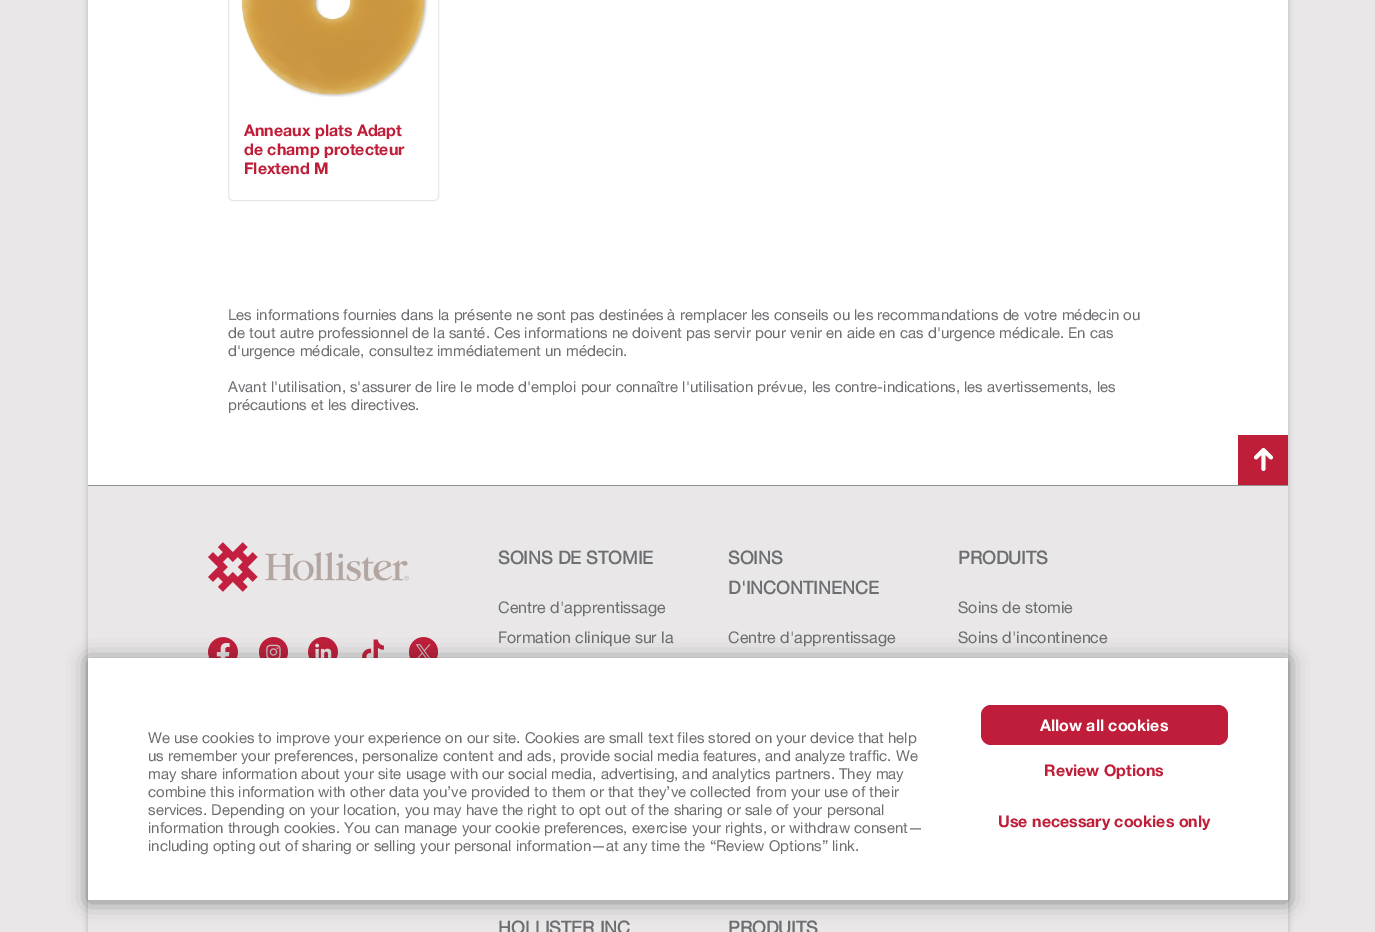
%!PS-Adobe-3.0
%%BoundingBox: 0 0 1375 932
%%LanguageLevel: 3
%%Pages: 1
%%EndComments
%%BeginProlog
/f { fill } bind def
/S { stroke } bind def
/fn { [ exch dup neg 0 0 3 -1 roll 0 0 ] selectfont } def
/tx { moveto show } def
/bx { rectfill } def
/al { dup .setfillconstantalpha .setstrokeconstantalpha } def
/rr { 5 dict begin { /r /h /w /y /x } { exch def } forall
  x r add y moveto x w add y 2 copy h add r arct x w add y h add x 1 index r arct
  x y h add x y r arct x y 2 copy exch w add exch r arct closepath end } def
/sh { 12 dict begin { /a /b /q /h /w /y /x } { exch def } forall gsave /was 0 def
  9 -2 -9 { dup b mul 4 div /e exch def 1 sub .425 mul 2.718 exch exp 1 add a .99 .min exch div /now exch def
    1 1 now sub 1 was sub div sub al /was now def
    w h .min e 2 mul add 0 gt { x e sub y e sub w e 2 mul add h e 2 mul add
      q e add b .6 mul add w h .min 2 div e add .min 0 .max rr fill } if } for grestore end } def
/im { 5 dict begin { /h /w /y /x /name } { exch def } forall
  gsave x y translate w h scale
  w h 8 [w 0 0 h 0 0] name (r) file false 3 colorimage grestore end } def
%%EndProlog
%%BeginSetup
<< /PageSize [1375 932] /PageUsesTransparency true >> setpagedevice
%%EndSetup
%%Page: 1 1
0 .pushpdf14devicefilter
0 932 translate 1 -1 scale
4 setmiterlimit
0.914 0.906 0.906 setrgbcolor
0 0 1375 932 bx
0.141 setgray
88 -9 1200 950 0 3 0.27 sh
1 setgray
88 0 1200 485 bx
0.914 0.906 0.906 setrgbcolor
228.5 -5.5 210 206 4.5 rr S
(image0.raw) 241 0 187 97 im
/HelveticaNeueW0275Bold-Bold 16 fn
0.749 0.118 0.224 setrgbcolor
(Anneaux plats Adapt) 244 136 tx
(de champ protecteur) 244 155 tx
(Flextend M) 244 174 tx
/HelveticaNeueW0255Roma-Regular 15 fn
0.427 0.431 0.443 setrgbcolor
(Les informations fournies dans la présente ne sont pas destinées à remplacer les conseils ou les recommandations de votre médecin ou) 228 320 tx
(de tout autre professionnel de la santé. Ces informations ne doivent pas servir pour venir en aide en cas d'urgence médicale. En cas) 228 338 tx
(d'urgence médicale, consultez immédiatement un médecin.) 228 356 tx
(Avant l'utilisation, s'assurer de lire le mode d'emploi pour connaître l'utilisation prévue, les contre-indications, les avertissements, les) 228 392 tx
(précautions et les directives.) 228 410 tx
0.914 0.906 0.906 setrgbcolor
88 486 1200 446 bx
0.569 setgray
88 485 1200 1 bx
0.749 0.118 0.224 setrgbcolor
1238 435 50 50 bx
(image1.raw) 1254 448 19 23 im
(image2.raw) 208 542 201 50 im
(image3.raw) 208 637 30 21 im
(image4.raw) 259 637 29 21 im
(image5.raw) 308 637 30 21 im
(image6.raw) 362 639 22 19 im
(image7.raw) 409 637 29 21 im
/HelveticaNeueW0255Roma-Bold 18 fn
0.427 0.431 0.443 setrgbcolor
(SOINS DE STOMIE) 498 564 tx
/HelveticaNeueW0255Roma-Regular 16 fn
(Centre d'apprentissage) 498 613 tx
(Formation clinique sur la) 498 643 tx
/HelveticaNeueW0255Roma-Bold 18 fn
(SOINS) 728 564 tx
(D'INCONTINENCE) 728 594 tx
/HelveticaNeueW0255Roma-Regular 16 fn
(Centre d'apprentissage) 728 643 tx
/HelveticaNeueW0255Roma-Bold 18 fn
(PRODUITS) 958 564 tx
/HelveticaNeueW0255Roma-Regular 16 fn
(Soins de stomie) 958 613 tx
(Soins d'incontinence) 958 643 tx
/HelveticaNeueW0255Roma-Bold 18 fn
(HOLLISTER INC) 498 934 tx
(PRODUITS) 728 934 tx
0.129 setgray
88 660 1200 242 0 10 0.5 sh
1 setgray
88 658 1200 242 bx
/HelveticaNeueW0255Roma-Regular 15 fn
0.427 0.431 0.443 setrgbcolor
(We use cookies to improve your experience on our site. Cookies are small text files stored on your device that help) 148 743 tx
(us remember your preferences, personalize content and ads, provide social media features, and analyze traffic. We) 148 761 tx
(may share information about your site usage with our social media, advertising, and analytics partners. They may) 148 779 tx
(combine this information with other data you’ve provided to them or that they’ve collected from your use of their) 148 797 tx
(services. Depending on your location, you may have the right to opt out of the sharing or sale of your personal) 148 815 tx
(information through cookies. You can manage your cookie preferences, exercise your rights, or withdraw consent—) 148 833 tx
(including opting out of sharing or selling your personal information—at any time the “Review Options” link.) 148 851 tx
0.749 0.114 0.224 setrgbcolor
981 705 247 40 10 rr f
/HelveticaNeueW0275Bold-Bold 16 fn
1 setgray
(Allow all cookies) 1040 731 tx
0.749 0.118 0.224 setrgbcolor
(Review Options) 1044 776 tx
(Use necessary cookies only) 998 827 tx
.poppdf14devicefilter showpage
%%EOF
